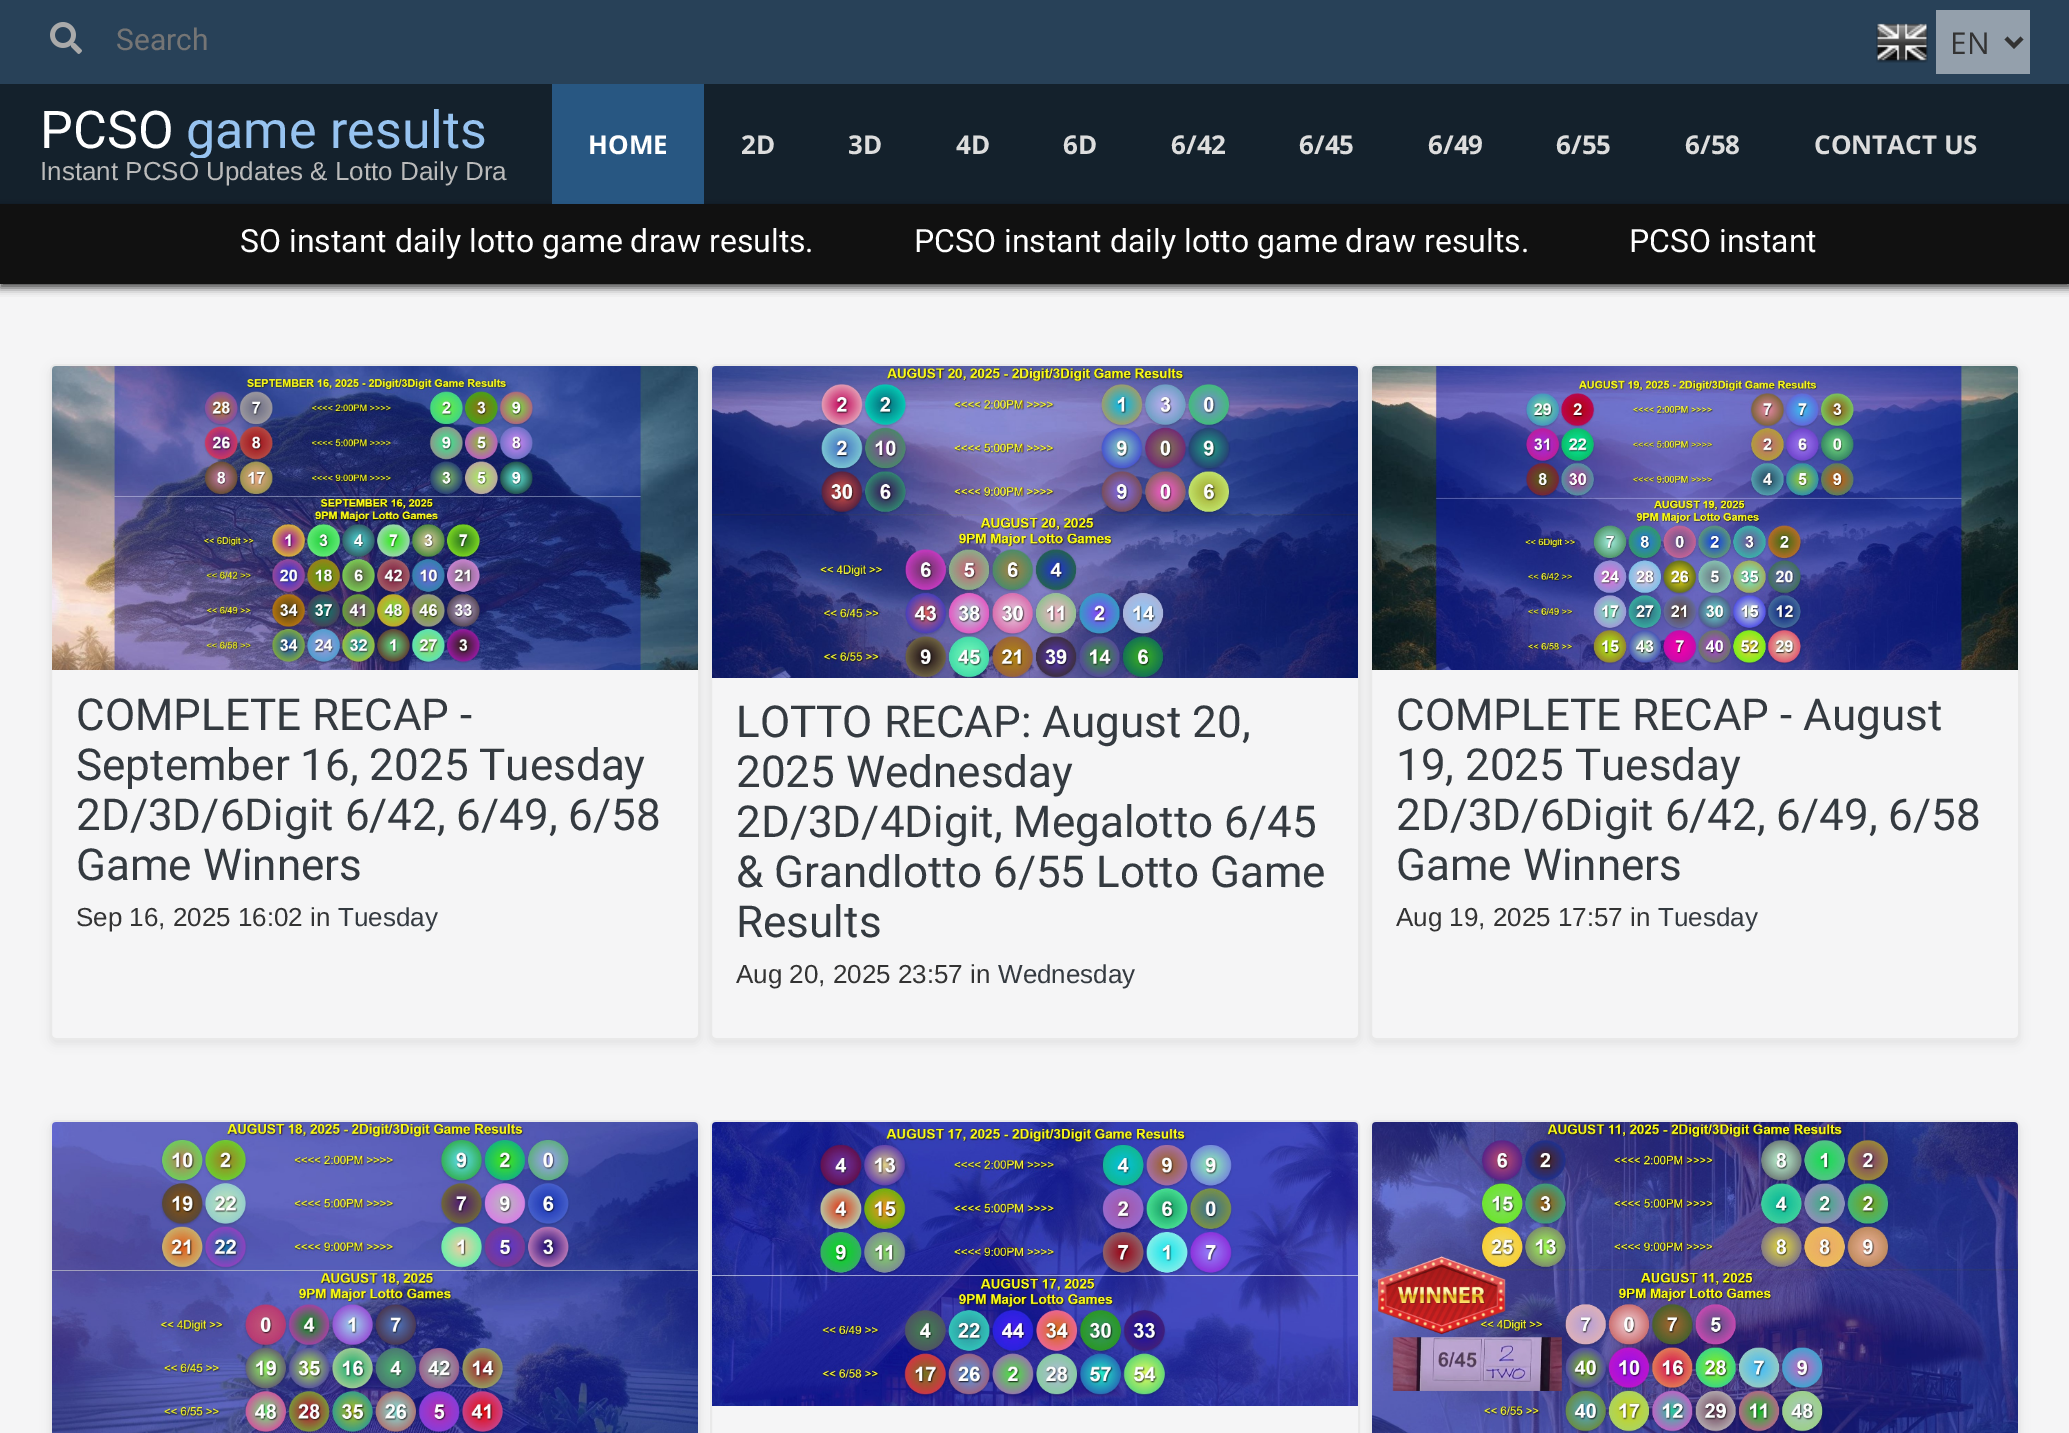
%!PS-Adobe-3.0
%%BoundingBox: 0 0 2069 1433
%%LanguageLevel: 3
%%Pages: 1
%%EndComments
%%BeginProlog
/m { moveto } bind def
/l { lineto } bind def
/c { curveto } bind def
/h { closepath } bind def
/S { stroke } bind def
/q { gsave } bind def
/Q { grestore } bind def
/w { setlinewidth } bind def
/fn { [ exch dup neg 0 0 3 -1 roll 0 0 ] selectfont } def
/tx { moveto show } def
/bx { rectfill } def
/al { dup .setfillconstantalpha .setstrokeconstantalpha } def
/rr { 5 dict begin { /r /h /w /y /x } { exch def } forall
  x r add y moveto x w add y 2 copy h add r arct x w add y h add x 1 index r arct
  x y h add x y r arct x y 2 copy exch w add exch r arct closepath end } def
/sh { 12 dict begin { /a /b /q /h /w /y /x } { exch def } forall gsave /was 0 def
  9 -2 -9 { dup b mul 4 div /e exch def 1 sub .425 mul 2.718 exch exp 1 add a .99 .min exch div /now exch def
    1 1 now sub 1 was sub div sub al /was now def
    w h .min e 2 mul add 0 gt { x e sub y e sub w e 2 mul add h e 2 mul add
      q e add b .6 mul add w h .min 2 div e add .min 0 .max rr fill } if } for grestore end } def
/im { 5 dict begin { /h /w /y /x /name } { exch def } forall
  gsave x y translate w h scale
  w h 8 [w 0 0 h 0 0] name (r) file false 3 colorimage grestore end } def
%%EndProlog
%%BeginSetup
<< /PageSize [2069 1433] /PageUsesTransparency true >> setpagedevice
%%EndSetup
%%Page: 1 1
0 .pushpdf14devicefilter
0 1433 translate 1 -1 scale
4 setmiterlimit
0.961 0.961 0.965 setrgbcolor
0 0 2069 1433 bx
0.157 0.255 0.345 setrgbcolor
0 0 2069 84 bx
(image0.raw) 50 22 32 32 im
/Roboto-Regular 30 fn
0.459 setgray
(Search) 116 50 tx
(image1.raw) 1876 23 52 40 im
0.58 0.627 0.675 setrgbcolor
1936 10 94 64 bx
0.2 setgray
4 w
2006 38 m 2014 46 l 2022 38 l S
/OpenSans-Regular 30 fn
(EN) 1950 54 tx
0.078 0.129 0.173 setrgbcolor
0 84 2069 120 bx
/Roboto-Regular 52 fn
1 setgray
(PCSO) 40 148 tx
q
40 84 472 74 rectclip
0.592 0.765 0.941 setrgbcolor
(game results) 186 148 tx
Q
/LiberationSans-Regular 26 fn
0.733 setgray
(Instant PCSO Updates & Lotto Daily Dra) 40 180 tx
0 setgray
0 208 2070 80 0 4 0.7 sh
0.5 al
0.231 0.553 0.847 setrgbcolor
552 84 152 120 bx
/OpenSans-Bold 26 fn
1 al
1 setgray
(HOME) 588 154 tx
0.867 setgray
(2D) 741 154 tx
(3D) 848 154 tx
(4D) 956 154 tx
(6D) 1063 154 tx
(6/42) 1171 154 tx
(6/45) 1299 154 tx
(6/49) 1428 154 tx
(6/55) 1556 154 tx
(6/58) 1685 154 tx
(CONTACT US) 1814 154 tx
0.067 setgray
0 204 2069 80 bx
/Roboto-Regular 32 fn
1 setgray
(SO instant daily lotto game draw results.) 240 252 tx
(PCSO instant daily lotto game draw results.) 914 252 tx
(PCSO instant) 1629 252 tx
q
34 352 m 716 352 l 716 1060 l 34 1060 l h 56 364 m 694 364 l 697.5 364 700 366.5 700 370 c 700 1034 l 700 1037.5 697.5 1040 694 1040 c 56 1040 l 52.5 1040 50 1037.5 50 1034 c 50 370 l 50 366.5 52.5 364 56 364 c h eoclip newpath
0 setgray
50 368 650 676 6 5 0.07 sh
Q
0.914 setgray
2 w
51 365 648 674 5 rr S
(image2.raw) 52 366 646 304 im
/Roboto-Regular 44 fn
0.204 0.227 0.251 setrgbcolor
(COMPLETE RECAP -) 76 730 tx
(September 16, 2025 Tuesday) 76 780 tx
(2D/3D/6Digit 6/42, 6/49, 6/58) 76 830 tx
(Game Winners) 76 880 tx
/LiberationSans-Regular 26 fn
0.2 setgray
(Sep 16, 2025 16:02 in) 76 926 tx
0.204 0.227 0.251 setrgbcolor
(Tuesday) 338 926 tx
q
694 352 m 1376 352 l 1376 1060 l 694 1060 l h 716 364 m 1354 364 l 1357.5 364 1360 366.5 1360 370 c 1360 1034 l 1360 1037.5 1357.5 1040 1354 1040 c 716 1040 l 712.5 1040 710 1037.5 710 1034 c 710 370 l 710 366.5 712.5 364 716 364 c h eoclip newpath
0 setgray
710 368 650 676 6 5 0.07 sh
Q
0.914 setgray
711 365 648 674 5 rr S
(image3.raw) 712 366 646 312 im
/Roboto-Regular 44 fn
0.204 0.227 0.251 setrgbcolor
(LOTTO RECAP: August 20,) 736 737 tx
(2025 Wednesday) 736 787 tx
(2D/3D/4Digit, Megalotto 6/45) 736 837 tx
(& Grandlotto 6/55 Lotto Game) 736 887 tx
(Results) 736 937 tx
/LiberationSans-Regular 26 fn
0.2 setgray
(Aug 20, 2025 23:57 in) 736 983 tx
0.204 0.227 0.251 setrgbcolor
(Wednesday) 998 983 tx
q
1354 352 m 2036 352 l 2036 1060 l 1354 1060 l h 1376 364 m 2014 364 l 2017.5 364 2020 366.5 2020 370 c 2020 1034 l 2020 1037.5 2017.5 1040 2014 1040 c 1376 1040 l 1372.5 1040 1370 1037.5 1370 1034 c 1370 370 l 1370 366.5 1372.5 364 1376 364 c h eoclip newpath
0 setgray
1370 368 650 676 6 5 0.07 sh
Q
0.914 setgray
1371 365 648 674 5 rr S
(image4.raw) 1372 366 646 304 im
/Roboto-Regular 44 fn
0.204 0.227 0.251 setrgbcolor
(COMPLETE RECAP - August) 1396 730 tx
(19, 2025 Tuesday) 1396 780 tx
(2D/3D/6Digit 6/42, 6/49, 6/58) 1396 830 tx
(Game Winners) 1396 880 tx
/LiberationSans-Regular 26 fn
0.2 setgray
(Aug 19, 2025 17:57 in) 1396 926 tx
0.204 0.227 0.251 setrgbcolor
(Tuesday) 1658 926 tx
0 setgray
50 1124 650 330 6 5 0.07 sh
0.914 setgray
51 1121 648 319 5 rr S
(image5.raw) 52 1122 646 311 im
711 1121 648 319 5 rr S
(image6.raw) 712 1122 646 284 im
0 setgray
1370 1124 650 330 6 5 0.07 sh
0.914 setgray
1371 1121 648 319 5 rr S
(image7.raw) 1372 1122 646 311 im
.poppdf14devicefilter showpage
%%EOF
